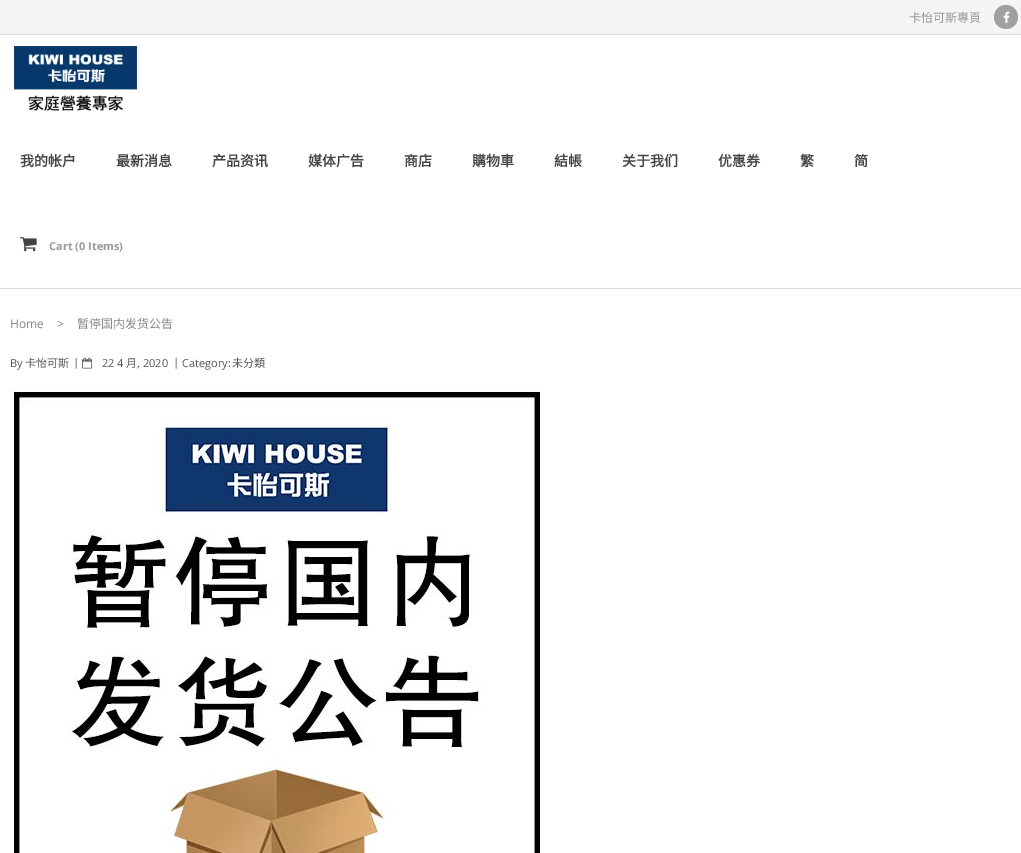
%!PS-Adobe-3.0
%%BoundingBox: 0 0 1021 853
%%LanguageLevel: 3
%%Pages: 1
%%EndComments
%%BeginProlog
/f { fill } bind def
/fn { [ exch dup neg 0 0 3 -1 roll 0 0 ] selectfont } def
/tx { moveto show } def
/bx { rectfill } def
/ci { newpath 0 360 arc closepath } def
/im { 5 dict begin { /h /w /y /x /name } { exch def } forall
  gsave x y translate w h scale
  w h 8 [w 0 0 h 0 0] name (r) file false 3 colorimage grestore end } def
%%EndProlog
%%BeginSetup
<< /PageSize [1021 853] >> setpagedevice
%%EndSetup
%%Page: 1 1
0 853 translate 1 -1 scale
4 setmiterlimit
1 setgray
0 0 1021 853 bx
0.867 setgray
0 288 1021 1 bx
0.961 setgray
0 0 1021 34 bx
0.867 setgray
0 34 1021 1 bx
/NotoSansCJKSC-Regular 12 fn
0.6 setgray
(卡怡可斯專頁) 909 22 tx
0.627 setgray
1006 17 12 ci f
(image0.raw) 1003 11 7 12 im
(image1.raw) 14 46 123 65 im
/NotoSansCJKSC-Bold 14 fn
0.267 setgray
(我的帐户) 20 166 tx
(最新消息) 116 166 tx
(产品资讯) 212 166 tx
(媒体广告) 308 166 tx
(商店) 404 166 tx
(購物車) 472 166 tx
(結帳) 554 166 tx
(关于我们) 622 166 tx
(优惠券) 718 166 tx
(繁) 800 166 tx
(简) 854 166 tx
(image2.raw) 20 237 17 15 im
/OpenSans-Bold 11 fn
0.6 setgray
(Cart \(0 Items\)) 49 250 tx
/OpenSans-Regular 12 fn
0.533 setgray
(Home) 10 328 tx
(>) 57 328 tx
/NotoSansCJKSC-Regular 12 fn
(暂停国内发货公告) 77 328 tx
/OpenSans-Regular 11 fn
0.333 setgray
(By) 10 367 tx
/NotoSansCJKSC-Regular 11 fn
(卡怡可斯) 25 367 tx
/OpenSans-Regular 11 fn
(|) 73 366 tx
(image3.raw) 82 357 11 12 im
(22 4) 102 367 tx
/NotoSansCJKSC-Regular 11 fn
(月) 126 367 tx
/OpenSans-Regular 11 fn
(, 2020) 137 367 tx
(|) 173 366 tx
(Category:) 182 367 tx
/NotoSansCJKSC-Regular 11 fn
(未分類) 232 367 tx
(image4.raw) 11 389 530 464 im
showpage
%%EOF
